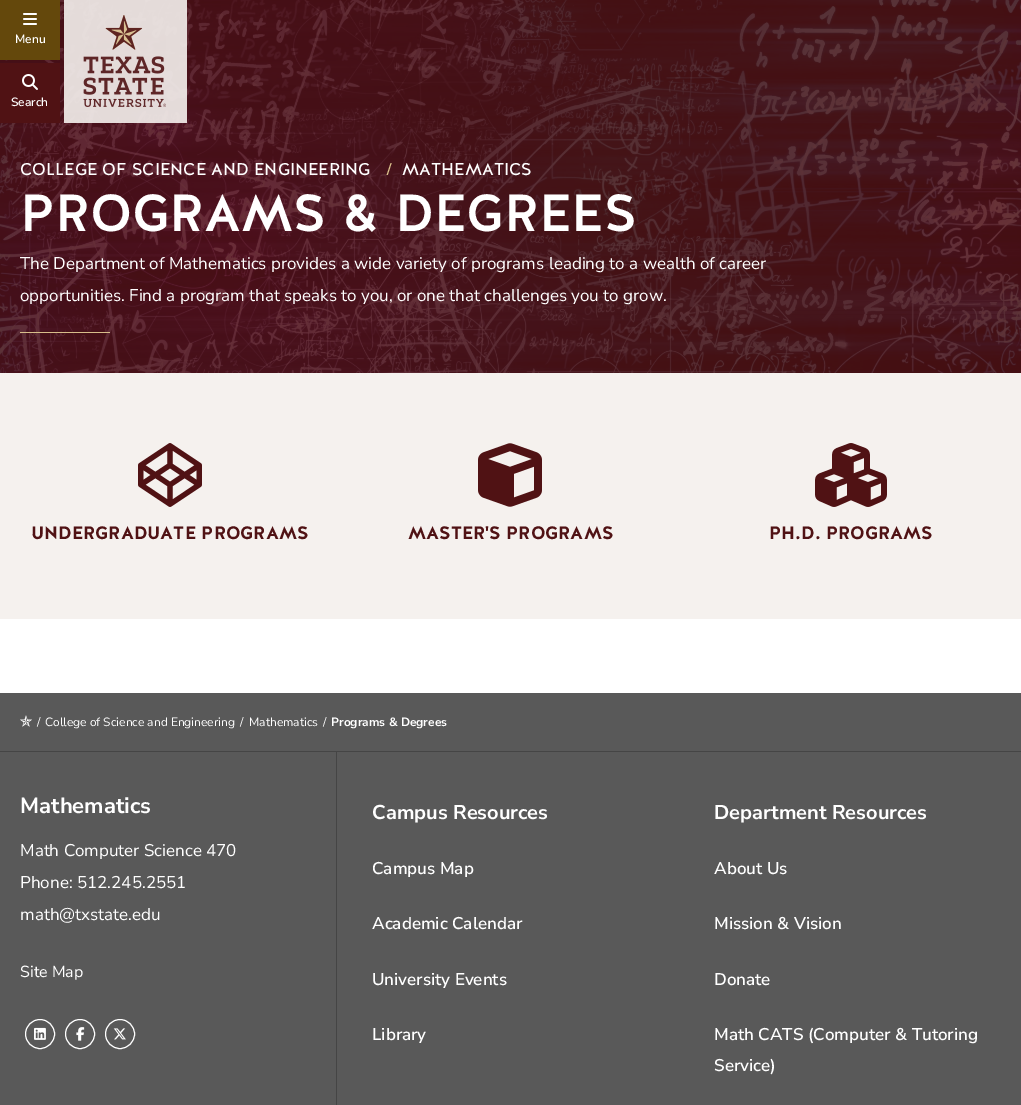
%!PS-Adobe-3.0
%%BoundingBox: 0 0 1021 1105
%%LanguageLevel: 3
%%Pages: 1
%%EndComments
%%BeginProlog
/S { stroke } bind def
/fn { [ exch dup neg 0 0 3 -1 roll 0 0 ] selectfont } def
/tx { moveto show } def
/bx { rectfill } def
/al { dup .setfillconstantalpha .setstrokeconstantalpha } def
/ci { newpath 0 360 arc closepath } def
/im { 5 dict begin { /h /w /y /x /name } { exch def } forall
  gsave x y translate w h scale
  w h 8 [w 0 0 h 0 0] name (r) file false 3 colorimage grestore end } def
%%EndProlog
%%BeginSetup
<< /PageSize [1021 1105] /PageUsesTransparency true >> setpagedevice
%%EndSetup
%%Page: 1 1
0 .pushpdf14devicefilter
0 1105 translate 1 -1 scale
4 setmiterlimit
1 setgray
0 0 1021 1105 bx
0.314 0.071 0.078 setrgbcolor
0 0 1021 373 bx
(image3.raw) 0 0 1021 373 im
0.392 0.282 0.047 setrgbcolor
0 0 60 60 bx
(image0.raw) 23 13 14 12 im
/NunitoSans-SemiBold 12 fn
1 setgray
(Menu) 15 43 tx
0.314 0.071 0.078 setrgbcolor
0 63 60 60 bx
(image1.raw) 22 74 16 16 im
1 setgray
(Search) 11 106 tx
0.9 al
0.961 0.945 0.933 setrgbcolor
64 0 123 123 bx
1 al
(image2.raw) 83 15 83 92 im
/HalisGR-Regular 17 fn
1 setgray
(COLLEGE OF SCIENCE AND ENGINEERING) 20 175 tx
0.843 0.741 0.541 setrgbcolor
(/) 386 175 tx
1 setgray
(MATHEMATICS) 402 175 tx
/HalisGR-Medium 52 fn
(PROGRAMS & DEGREES) 20 231 tx
/NunitoSans-Regular 17 fn
(The Department of Mathematics provides a wide variety of programs leading to a wealth of career) 20 269 tx
(opportunities. Find a program that speaks to you, or one that challenges you to grow.) 20 301 tx
0.843 0.741 0.541 setrgbcolor
20 332 90 1 bx
0.961 0.945 0.933 setrgbcolor
0 373 1021 246 bx
(image4.raw) 138 443 64 64 im
/HalisGR-Bold 18 fn
0.314 0.071 0.078 setrgbcolor
(UNDERGRADUATE PROGRAMS) 31 539 tx
(image5.raw) 478 443 64 64 im
(MASTER'S PROGRAMS) 408 539 tx
(image6.raw) 815 443 72 64 im
(PH.D. PROGRAMS) 769 539 tx
0.349 setgray
0 693 1021 58 bx
0.271 setgray
0 751 1021 1 bx
(image7.raw) 20 715 12 12 im
/NunitoSans-Regular 12 fn
1 setgray
(/) 37 726 tx
(College of Science and Engineering) 45 726 tx
(/) 240 726 tx
(Mathematics) 249 726 tx
(/) 323 726 tx
/NunitoSans-Bold 12 fn
(Programs & Degrees) 331 726 tx
0.349 setgray
0 752 1021 353 bx
0.271 setgray
336 752 1 353 bx
/NunitoSans-Bold 22 fn
1 setgray
(Mathematics) 20 813 tx
/NunitoSans-Regular 17 fn
(Math Computer Science 470) 20 856 tx
(Phone: 512.245.2551) 20 888 tx
(math@txstate.edu) 20 920 tx
/NunitoSans-Regular 16 fn
(Site Map) 20 977 tx
40 1034 14.5 ci S
(image8.raw) 34 1027 12 13 im
80 1034 14.5 ci S
(image9.raw) 76 1027 9 14 im
120 1034 14.5 ci S
(image10.raw) 113 1028 13 12 im
/NunitoSans-Bold 20 fn
(Campus Resources) 372 819 tx
/NunitoSans-SemiBold 17 fn
(Campus Map) 372 874 tx
(Academic Calendar) 372 929 tx
(University Events) 372 985 tx
(Library) 372 1040 tx
/NunitoSans-Bold 20 fn
(Department Resources) 714 819 tx
/NunitoSans-SemiBold 17 fn
(About Us) 714 874 tx
(Mission & Vision) 714 929 tx
(Donate) 714 985 tx
(Math CATS \(Computer & Tutoring) 714 1040 tx
(Service\)) 714 1071 tx
.poppdf14devicefilter showpage
%%EOF
